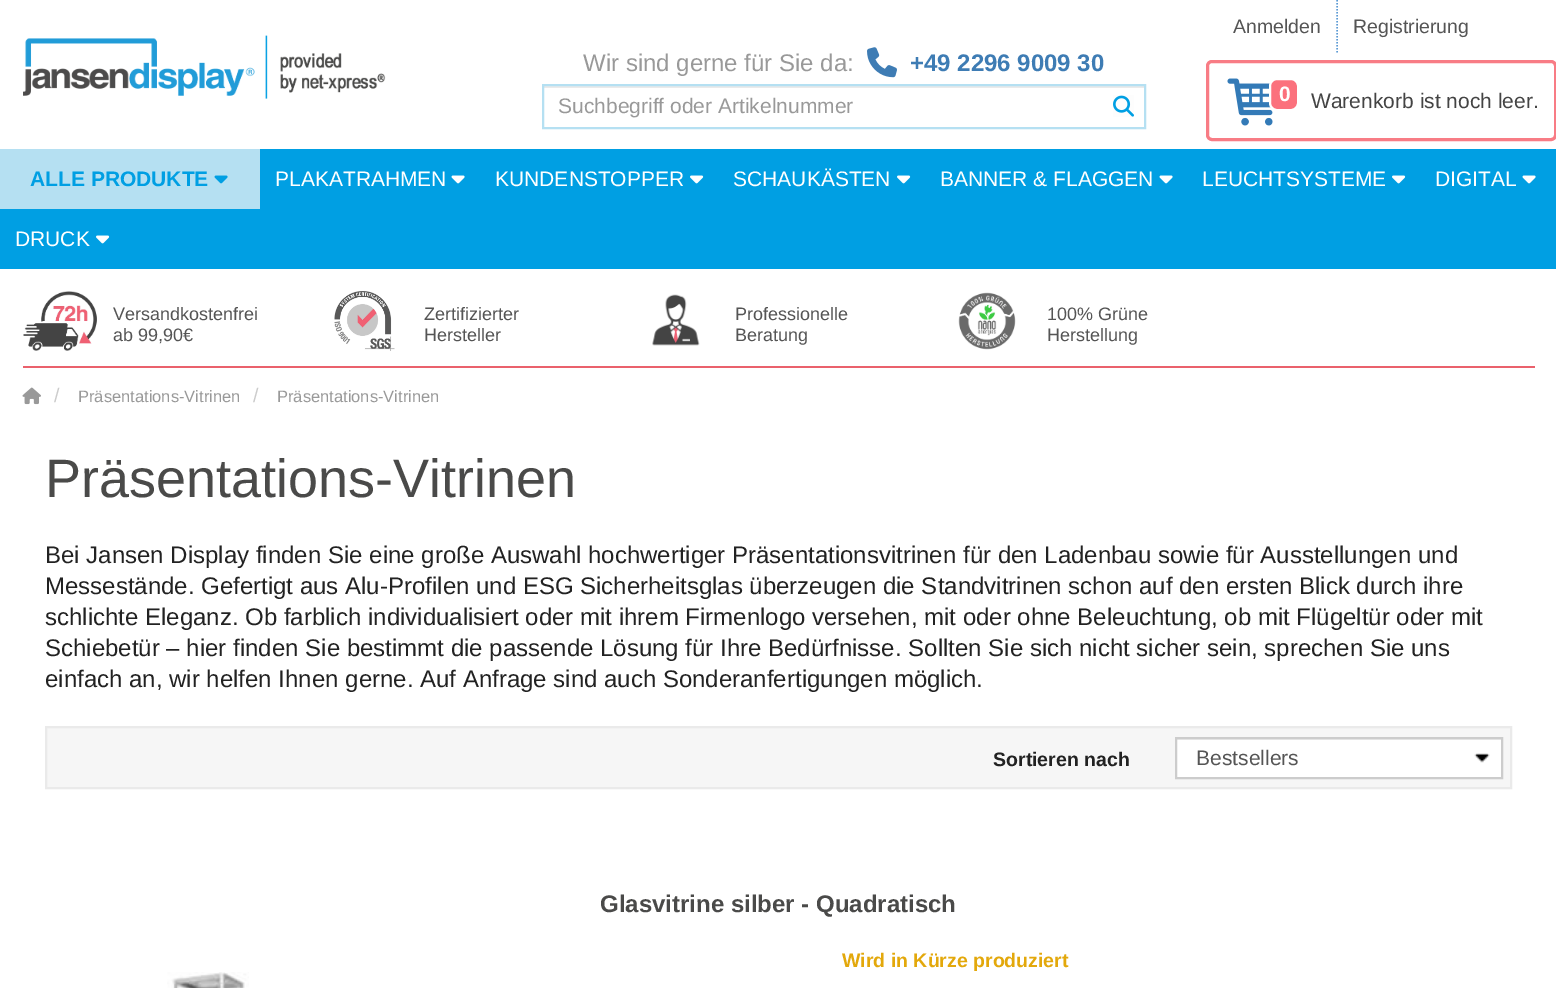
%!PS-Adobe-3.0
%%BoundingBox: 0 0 1556 988
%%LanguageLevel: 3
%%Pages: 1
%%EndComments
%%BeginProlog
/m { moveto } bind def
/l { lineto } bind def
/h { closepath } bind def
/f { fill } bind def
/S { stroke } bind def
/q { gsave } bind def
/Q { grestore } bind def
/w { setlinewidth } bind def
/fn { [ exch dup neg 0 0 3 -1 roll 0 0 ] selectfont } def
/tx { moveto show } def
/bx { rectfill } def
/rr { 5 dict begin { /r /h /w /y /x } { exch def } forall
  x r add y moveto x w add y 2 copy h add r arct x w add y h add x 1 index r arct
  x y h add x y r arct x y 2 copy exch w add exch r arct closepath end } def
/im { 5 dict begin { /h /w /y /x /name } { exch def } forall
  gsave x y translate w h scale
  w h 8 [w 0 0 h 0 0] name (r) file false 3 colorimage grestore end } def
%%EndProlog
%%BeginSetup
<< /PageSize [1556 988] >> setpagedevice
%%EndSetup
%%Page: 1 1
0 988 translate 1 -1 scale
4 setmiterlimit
1 setgray
0 0 1556 988 bx
/LiberationSans-Regular 19.5 fn
0.333 setgray
(Anmelden) 1233 33 tx
0.357 0.604 0.831 setrgbcolor
1.5 w
[1.5 1.5] 0 setdash
1337 0 m 1337 52.5 l S
0.333 setgray
(Registrierung) 1353 33 tx
(image0.raw) 23 35 363 64 im
/LiberationSans-Regular 24 fn
0.6 setgray
(Wir sind gerne für Sie da:) 583 71 tx
(image1.raw) 867 47 30 31 im
/LiberationSans-Bold 24 fn
0.243 0.486 0.706 setrgbcolor
(+49 2296 9009 30) 910 71 tx
0.918 setgray
543 86 602 2 bx
0.71 0.878 0.949 setrgbcolor
2 w
[] 0 setdash
543 85 602 43 rectstroke
/LiberationSans-Regular 21 fn
0.6 setgray
(Suchbegriff oder Artikelnummer) 558 113 tx
(image2.raw) 1113 95 21 22 im
0.973 0.486 0.522 setrgbcolor
3 w
1207.5 61.5 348 78 4.5 rr S
(image3.raw) 1227 78 46 48 im
0.984 0.443 0.49 setrgbcolor
1270 79 28 31 7 rr q f Q
1 setgray
2 w
S
/LiberationSans-Bold 21 fn
(0) 1279 101 tx
/LiberationSans-Regular 21 fn
0.267 setgray
(Warenkorb ist noch leer.) 1311 108 tx
0 0.624 0.89 setrgbcolor
0 149 1556 120 bx
0.71 0.878 0.949 setrgbcolor
0 149 260 60 bx
/LiberationSans-Bold 21 fn
0 0.624 0.89 setrgbcolor
(ALLE PRODUKTE) 30 186 tx
(image4.raw) 214 175 14 9 im
/LiberationSans-Regular 21 fn
1 setgray
(PLAKATRAHMEN) 275 186 tx
(image5.raw) 451 175 14 9 im
(KUNDENSTOPPER) 495 186 tx
(image6.raw) 690 175 14 9 im
(SCHAUKÄSTEN) 733 186 tx
(image6.raw) 897 175 14 9 im
(BANNER & FLAGGEN) 940 186 tx
(image5.raw) 1159 175 14 9 im
(LEUCHTSYSTEME) 1202 186 tx
(image6.raw) 1392 175 14 9 im
(DIGITAL) 1435 186 tx
(image5.raw) 1522 175 14 9 im
(DRUCK) 15 246 tx
(image6.raw) 96 235 14 9 im
(image7.raw) 23 291 74 60 im
/LiberationSans-Regular 18 fn
0.333 setgray
(Versandkostenfrei) 113 320 tx
(ab 99,90€) 113 341 tx
(image8.raw) 334 291 61 60 im
(Zertifizierter) 424 320 tx
(Hersteller) 424 341 tx
(image9.raw) 652 294 48 52 im
(Professionelle) 735 320 tx
(Beratung) 735 341 tx
(image10.raw) 958 292 58 58 im
(100% Grüne) 1047 320 tx
(Herstellung) 1047 341 tx
0.918 0.38 0.424 setrgbcolor
23 366 1512 2 bx
(image11.raw) 22 387 19 18 im
/LiberationSans-Regular 19.5 fn
0.8 setgray
(/) 54 402 tx
/LiberationSans-Regular 16.5 fn
0.6 setgray
(Präsentations-Vitrinen) 78 402 tx
/LiberationSans-Regular 19.5 fn
0.8 setgray
(/) 253 402 tx
/LiberationSans-Regular 16.5 fn
0.6 setgray
(Präsentations-Vitrinen) 277 402 tx
/LiberationSans-Regular 54 fn
0.29 0.29 0.286 setrgbcolor
(Präsentations-Vitrinen) 45 497 tx
/LiberationSans-Regular 24 fn
0.133 setgray
(Bei Jansen Display finden Sie eine große Auswahl hochwertiger Präsentationsvitrinen für den Ladenbau sowie für Ausstellungen und) 45 563 tx
(Messestände. Gefertigt aus Alu-Profilen und ESG Sicherheitsglas überzeugen die Standvitrinen schon auf den ersten Blick durch ihre) 45 594 tx
(schlichte Eleganz. Ob farblich individualisiert oder mit ihrem Firmenlogo versehen, mit oder ohne Beleuchtung, ob mit Flügeltür oder mit) 45 625 tx
(Schiebetür – hier finden Sie bestimmt die passende Lösung für Ihre Bedürfnisse. Sollten Sie sich nicht sicher sein, sprechen Sie uns) 45 656 tx
(einfach an, wir helfen Ihnen gerne. Auf Anfrage sind auch Sonderanfertigungen möglich.) 45 687 tx
0.965 setgray
46 727 m 1511 727 l 1511 788 l 46 788 l h q f Q
0.918 setgray
S
/LiberationSans-Bold 19.5 fn
0.133 setgray
(Sortieren nach) 993 766 tx
1 setgray
1177 740 324 37 bx
(image12.raw) 1474 753 16 10 im
0.925 setgray
1176 739 326 1 bx
0.8 setgray
1176 738 326 40 rectstroke
/LiberationSans-Regular 21 fn
0.333 setgray
(Bestsellers) 1196 765 tx
/LiberationSans-Bold 24 fn
0.29 0.29 0.286 setrgbcolor
(Glasvitrine silber - Quadratisch) 600 912 tx
/LiberationSans-Bold 19.5 fn
0.89 0.659 0.043 setrgbcolor
(Wird in Kürze produziert) 842 967 tx
(image13.raw) 167 972 82 16 im
showpage
%%EOF
